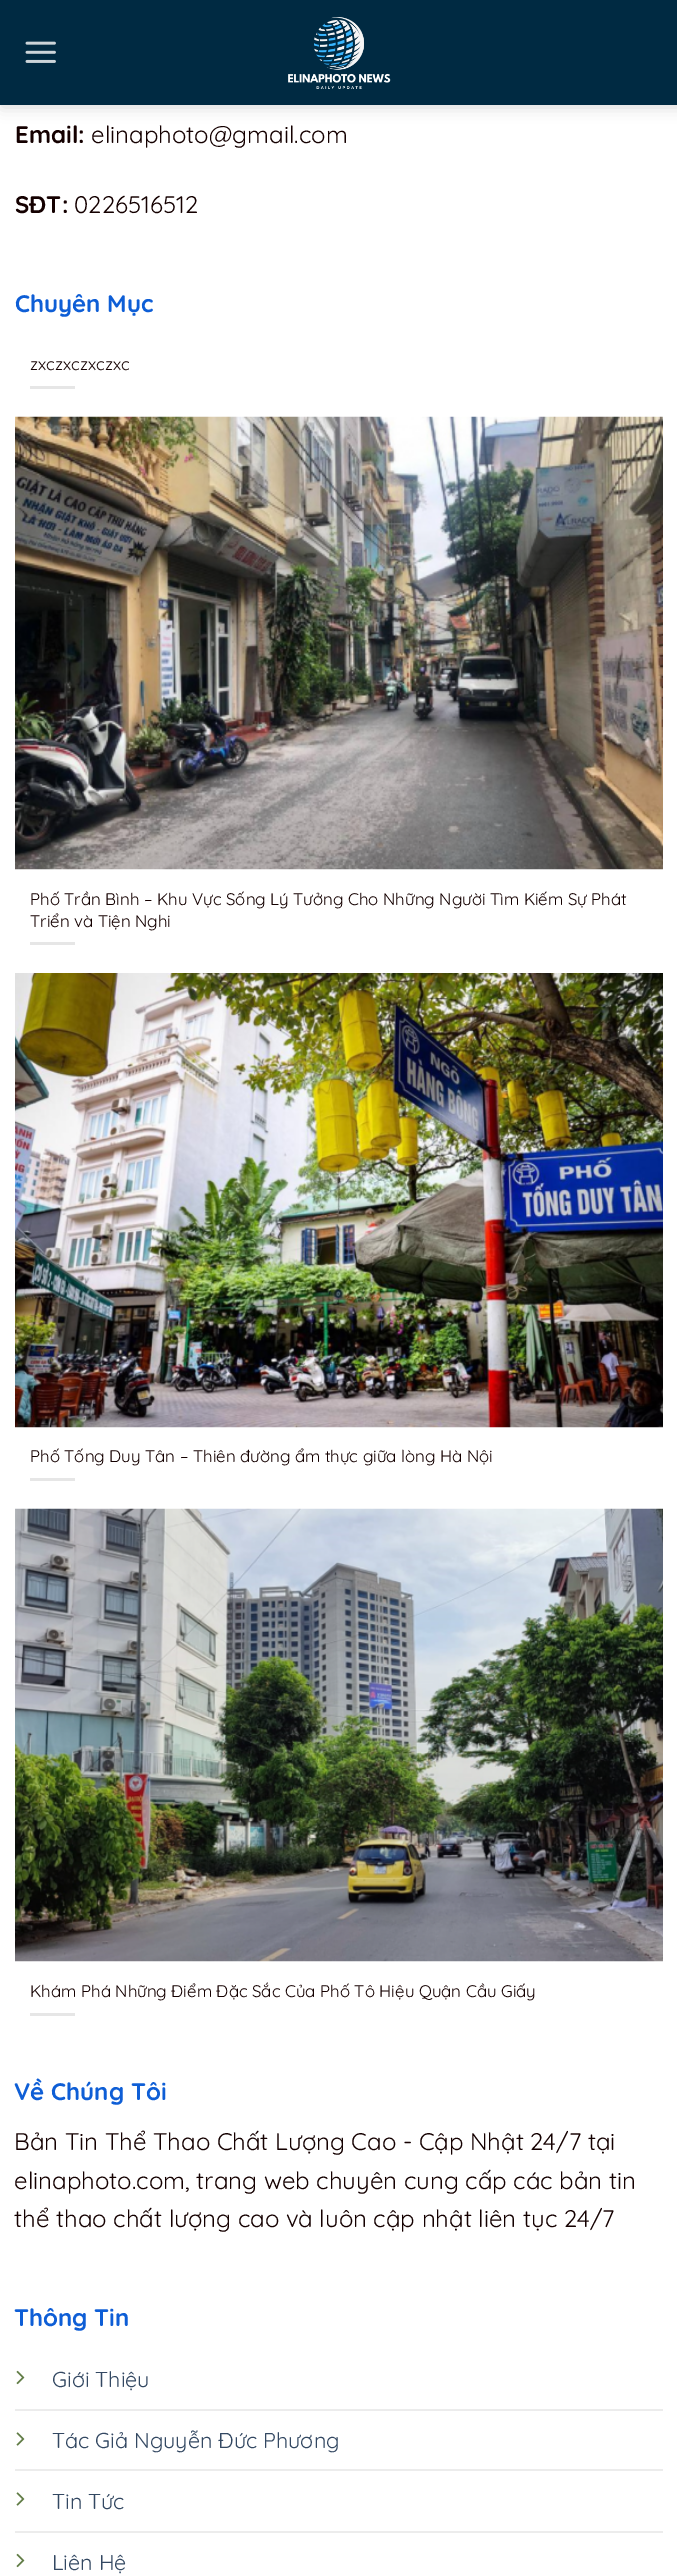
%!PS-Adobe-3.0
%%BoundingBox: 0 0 677 2575
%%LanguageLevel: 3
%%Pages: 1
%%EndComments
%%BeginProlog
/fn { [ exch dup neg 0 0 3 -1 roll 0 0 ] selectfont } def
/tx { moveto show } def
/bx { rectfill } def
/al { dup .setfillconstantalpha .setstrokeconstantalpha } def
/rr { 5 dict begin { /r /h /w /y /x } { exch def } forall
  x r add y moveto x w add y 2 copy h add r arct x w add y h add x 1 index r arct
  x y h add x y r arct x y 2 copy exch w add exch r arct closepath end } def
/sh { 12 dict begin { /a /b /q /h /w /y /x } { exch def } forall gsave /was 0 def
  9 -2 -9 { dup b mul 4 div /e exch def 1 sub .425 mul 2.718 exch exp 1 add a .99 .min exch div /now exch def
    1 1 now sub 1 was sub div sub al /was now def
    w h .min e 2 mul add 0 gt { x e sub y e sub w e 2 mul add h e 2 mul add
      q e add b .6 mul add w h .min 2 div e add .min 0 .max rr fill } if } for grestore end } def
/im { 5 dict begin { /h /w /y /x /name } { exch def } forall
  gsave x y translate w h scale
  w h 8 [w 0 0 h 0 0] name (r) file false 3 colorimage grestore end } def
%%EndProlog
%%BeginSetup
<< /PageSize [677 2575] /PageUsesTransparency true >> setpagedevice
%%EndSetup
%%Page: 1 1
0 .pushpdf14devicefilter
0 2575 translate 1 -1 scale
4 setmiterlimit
1 setgray
0 0 677 2575 bx
0 setgray
2 2 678 105 0 7.5 0.15 sh
0 0.165 0.259 setrgbcolor
0 0 677 105 bx
(image0.raw) 25 41 31 22 im
(image1.raw) 288 17 103 72 im
/Quicksand-Bold 24 fn
0.078 0 0 setrgbcolor
(Email:) 15 143 tx
/Quicksand-Regular 24 fn
(elinaphoto@gmail.com) 91 143 tx
/Quicksand-Bold 24 fn
(SĐT:) 15 213 tx
/Quicksand-Regular 24 fn
(0226516512) 74 213 tx
/Quicksand-Bold 24 fn
0.055 0.369 0.839 setrgbcolor
(Chuyên Mục) 15 312 tx
/Quicksand-Regular 16.8 fn
0.078 0 0 setrgbcolor
(zxczxczxczxc) 30 370 tx
0.902 setgray
30 386 45 3 bx
(image2.raw) 15 416 648 454 im
0.078 0 0 setrgbcolor
(Phố Trần Bình – Khu Vực Sống Lý Tưởng Cho Những Người Tìm Kiếm Sự Phát) 30 905 tx
(Triển và Tiện Nghi) 30 927 tx
0.902 setgray
30 942 45 3 bx
(image3.raw) 15 973 648 455 im
0.078 0 0 setrgbcolor
(Phố Tống Duy Tân – Thiên đường ẩm thực giữa lòng Hà Nội) 30 1462 tx
0.902 setgray
30 1478 45 3 bx
(image4.raw) 15 1508 648 454 im
0.078 0 0 setrgbcolor
(Khám Phá Những Điểm Đặc Sắc Của Phố Tô Hiệu Quận Cầu Giấy) 30 1997 tx
0.902 setgray
30 2013 45 3 bx
/Quicksand-Bold 24 fn
0.055 0.369 0.839 setrgbcolor
(Về Chúng Tôi) 14 2100 tx
/Quicksand-Regular 24 fn
0.078 0 0 setrgbcolor
(Bản Tin Thể Thao Chất Lượng Cao - Cập Nhật 24/7 tại) 14 2150 tx
(elinaphoto.com, trang web chuyên cung cấp các bản tin) 14 2189 tx
(thể thao chất lượng cao và luôn cập nhật liên tục 24/7) 14 2227 tx
/Quicksand-Bold 24 fn
0.055 0.369 0.839 setrgbcolor
(Thông Tin) 14 2326 tx
0.925 setgray
15 2409 648 2 bx
(image5.raw) 16 2370 9 15 im
/Quicksand-Regular 21.6 fn
0.2 0.282 0.384 setrgbcolor
(Giới Thiệu) 52 2387 tx
0.925 setgray
15 2469 648 2 bx
(image6.raw) 16 2432 9 14 im
0.2 0.282 0.384 setrgbcolor
(Tác Giả Nguyễn Đức Phương) 52 2448 tx
0.925 setgray
15 2531 648 2 bx
(image6.raw) 16 2492 9 14 im
0.2 0.282 0.384 setrgbcolor
(Tin Tức) 52 2509 tx
(image5.raw) 16 2553 9 15 im
(Liên Hệ) 52 2570 tx
.poppdf14devicefilter showpage
%%EOF
